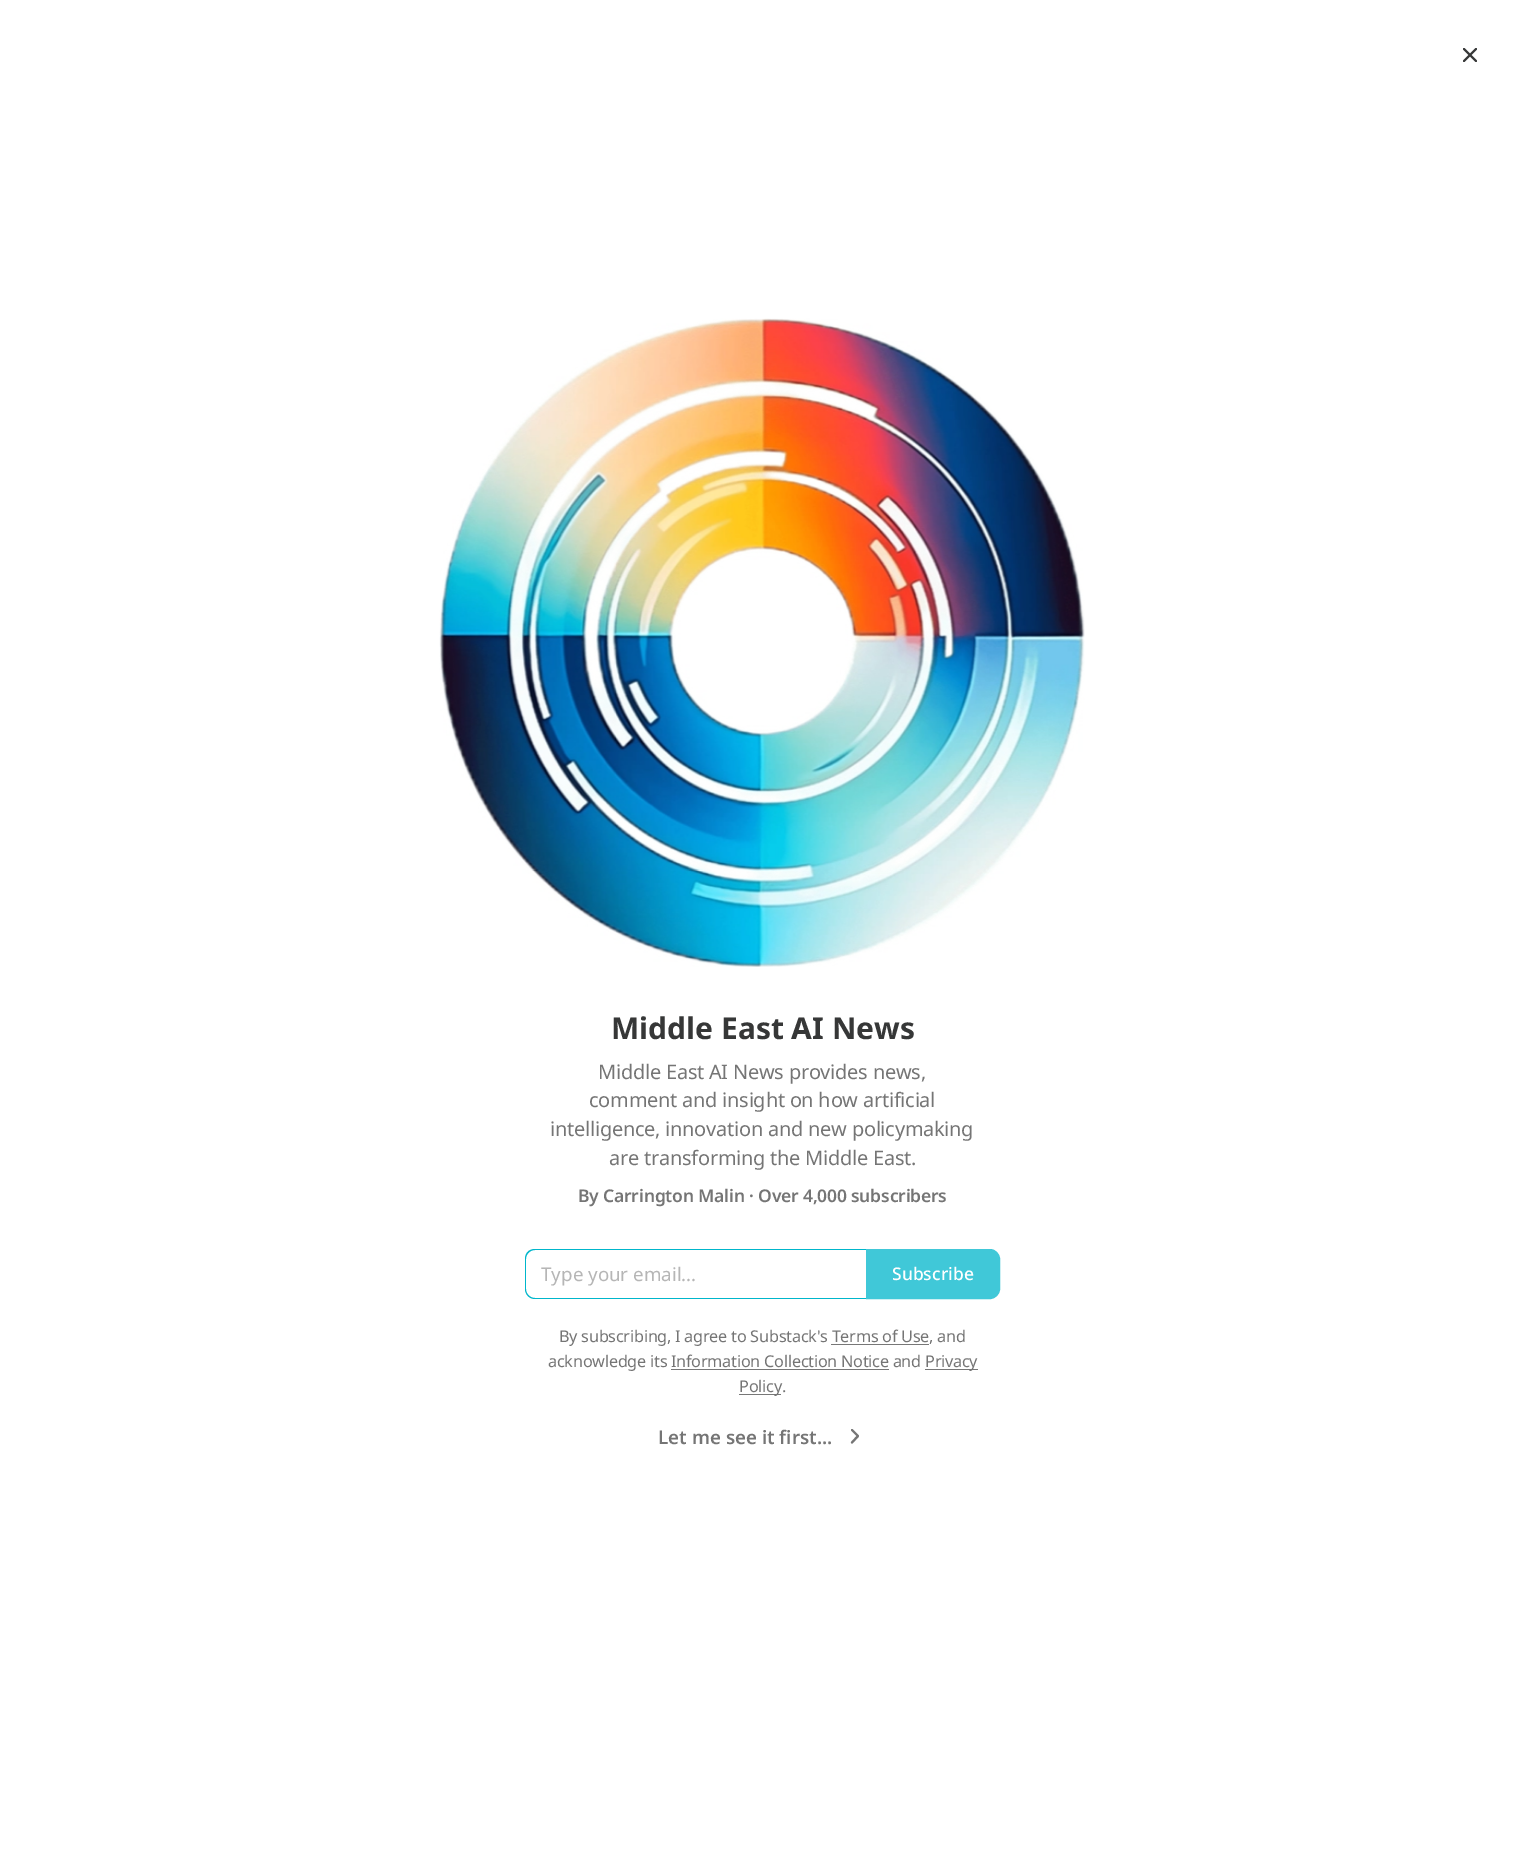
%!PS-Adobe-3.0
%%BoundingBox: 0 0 1525 1869
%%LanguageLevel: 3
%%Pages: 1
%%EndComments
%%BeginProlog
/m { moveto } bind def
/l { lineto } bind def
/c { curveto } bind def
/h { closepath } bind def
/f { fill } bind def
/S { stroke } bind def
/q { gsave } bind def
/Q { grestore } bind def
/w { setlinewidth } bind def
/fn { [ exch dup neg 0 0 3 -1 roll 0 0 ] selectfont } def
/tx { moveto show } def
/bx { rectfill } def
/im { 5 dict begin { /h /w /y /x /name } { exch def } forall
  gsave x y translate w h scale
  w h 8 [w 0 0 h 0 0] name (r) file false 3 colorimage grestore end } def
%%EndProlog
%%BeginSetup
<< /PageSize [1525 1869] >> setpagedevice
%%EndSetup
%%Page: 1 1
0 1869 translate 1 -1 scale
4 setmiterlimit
1 setgray
0 0 1525 1869 bx
0.212 0.216 0.216 setrgbcolor
2.1 w
1 setlinecap
1 setlinejoin
1476 49 m 1464 61 l 1464 49 m 1476 61 l S
(image0.raw) 439 318 646 649 im
/NotoSans-Bold 30 fn
(Middle East AI News) 611 1039 tx
/NotoSans-Regular 20 fn
0.459 setgray
598 1079 m -0.25 0 (Middle East AI News provides news,) ashow
589 1107 m -0.25 0 (comment and insight on how artificial) ashow
550 1136 m -0.25 0 (intelligence, innovation and new policymaking) ashow
609 1165 m -0.25 0 (are transforming the Middle East.) ashow
/NotoSans-SemiBold 17.5 fn
578 1202 m -0.2 0 (By Carrington Malin · Over 4,000 subscribers) ashow
0 0.714 0.796 setrgbcolor
535 1249 m 866 1249 l 866 1299 l 535 1299 l 529 1299 525 1294 525 1289 c 525 1259 l 525 1253 529 1249 535 1249 c h 535 1250 m 866 1250 l 866 1298 l 535 1298 l 530 1298 526 1294 526 1289 c 526 1259 l 526 1254 530 1250 535 1250 c h eofill
/NotoSans-Regular 18.75 fn
0.714 setgray
(Type your email...) 541 1281 tx
0.251 0.784 0.847 setrgbcolor
866.5 1249.5 m 990 1249.5 l 995 1249.5 999.5 1254 999.5 1259 c 999.5 1289 l 999.5 1294 995 1298.5 990 1298.5 c 866.5 1298.5 l h q f Q
1 w
0 setlinecap
0 setlinejoin
S
/NotoSans-Medium 17.5 fn
1 setgray
(Subscribe) 892 1280 tx
/NotoSans-Regular 16.25 fn
0.459 setgray
559 1342 m -0.25 0 (By subscribing, I agree to Substack's Terms of Use, and) ashow
0.467 setgray
831 1344 98 1 bx
0.459 setgray
548 1367 m -0.25 0 (acknowledge its Information Collection Notice and) ashow
0.467 setgray
925 1369 53 1 bx
0.459 setgray
925 1367 m -0.25 0 (Privacy) ashow
0.467 setgray
671 1369 218 1 bx
739 1394 42 1 bx
0.459 setgray
739 1392 m -0.25 0 (Policy.) ashow
/NotoSans-SemiBold 18.75 fn
(Let me see it first...) 658 1444 tx
2.1 w
1 setlinecap
1 setlinejoin
852 1442.5 m 858 1436 l 852 1430 l S
showpage
%%EOF
